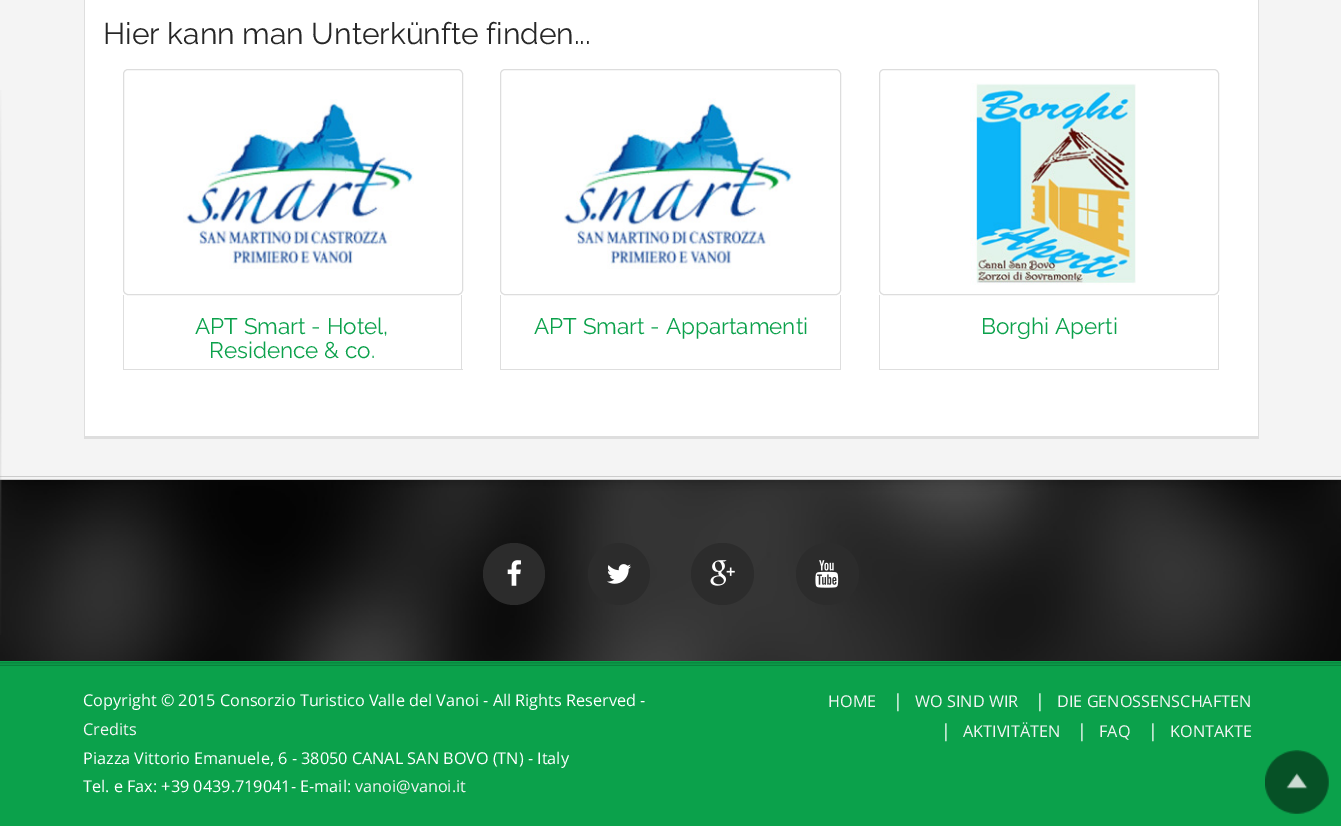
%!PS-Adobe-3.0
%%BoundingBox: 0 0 1341 826
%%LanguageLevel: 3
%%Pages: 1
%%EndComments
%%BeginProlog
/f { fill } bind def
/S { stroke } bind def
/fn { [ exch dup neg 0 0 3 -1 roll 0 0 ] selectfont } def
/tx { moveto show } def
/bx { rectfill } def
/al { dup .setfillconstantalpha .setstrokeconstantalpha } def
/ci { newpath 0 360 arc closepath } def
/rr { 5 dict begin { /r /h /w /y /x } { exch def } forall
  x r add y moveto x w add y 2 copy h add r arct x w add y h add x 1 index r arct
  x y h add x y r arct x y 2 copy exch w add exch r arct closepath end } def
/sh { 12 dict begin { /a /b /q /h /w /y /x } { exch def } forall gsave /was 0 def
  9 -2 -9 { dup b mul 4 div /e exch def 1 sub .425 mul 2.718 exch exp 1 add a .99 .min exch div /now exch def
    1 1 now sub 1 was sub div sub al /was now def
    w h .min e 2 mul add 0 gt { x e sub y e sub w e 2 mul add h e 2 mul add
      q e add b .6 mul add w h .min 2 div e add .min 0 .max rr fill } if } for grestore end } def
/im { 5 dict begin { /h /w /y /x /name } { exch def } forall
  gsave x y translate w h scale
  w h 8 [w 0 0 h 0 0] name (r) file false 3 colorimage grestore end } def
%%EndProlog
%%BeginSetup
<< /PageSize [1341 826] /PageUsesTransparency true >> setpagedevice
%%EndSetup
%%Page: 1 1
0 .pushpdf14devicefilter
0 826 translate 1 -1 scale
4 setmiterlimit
1 setgray
0 0 1341 826 bx
(image4.raw) 0 480 1341 181 im
0 setgray
0 -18 1341 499 0 6 0.3 sh
0.957 setgray
0 0 1341 479 bx
0.8 setgray
0 476 1341 1 bx
0 479 1341 1 bx
(image0.raw) 0 90 2 545 im
1 setgray
85 0 1173 436 bx
0.871 setgray
1258 0 1 439 bx
84 436 1175 3 bx
84 0 1 439 bx
/Raleway-Regular 30 fn
0.153 setgray
(Hier kann man Unterkünfte finden...) 103 44 tx
0.867 setgray
123.5 69.5 339 225 4.5 rr S
(image1.raw) 183 99 231 170 im
0.871 setgray
461 295 1 75 bx
123 369 340 1 bx
123 295 1 75 bx
/Raleway-Regular 22.5 fn
0.043 0.631 0.294 setrgbcolor
(APT Smart - Hotel,) 195 334 tx
(Residence & co.) 209 358 tx
0.867 setgray
500.5 69.5 340 225 4.5 rr S
(image2.raw) 564 98 229 171 im
0.871 setgray
840 295 1 75 bx
500 369 341 1 bx
500 295 1 75 bx
0.043 0.631 0.294 setrgbcolor
(APT Smart - Appartamenti) 534 334 tx
0.867 setgray
879.5 69.5 339 225 4.5 rr S
(image3.raw) 970 83 166 202 im
0.871 setgray
1218 295 1 75 bx
879 369 340 1 bx
879 295 1 75 bx
0.043 0.631 0.294 setrgbcolor
(Borghi Aperti) 981 334 tx
0.173 setgray
514 574 31 ci f
(image5.raw) 507 560 14 26 im
619 574 31 ci f
(image6.raw) 607 564 24 20 im
691 543 63 62 31 rr f
(image7.raw) 710 560 25 26 im
796 543 63 62 31 rr f
(image8.raw) 815 560 24 28 im
0.043 0.631 0.294 setrgbcolor
0 661 1341 165 bx
(image9.raw) 0 662 1341 4 im
/OpenSans-Regular 16.25 fn
1 setgray
(Copyright © 2015 Consorzio Turistico Valle del Vanoi - All Rights Reserved -) 83 706 tx
0.961 setgray
(Credits) 83 735 tx
1 setgray
(Piazza Vittorio Emanuele, 6 - 38050 CANAL SAN BOVO \(TN\) - Italy) 83 764 tx
(Tel. e Fax: +39 0439.719041- E-mail:) 83 792 tx
0.961 setgray
(vanoi@vanoi.it) 355 792 tx
(HOME) 828 707 tx
/OpenSans-Regular 18 fn
1 setgray
(|) 893 707 tx
/OpenSans-Regular 16.25 fn
0.961 setgray
(WO SIND WIR) 915 707 tx
/OpenSans-Regular 18 fn
1 setgray
(|) 1035 707 tx
/OpenSans-Regular 16.25 fn
0.961 setgray
(DIE GENOSSENSCHAFTEN) 1057 707 tx
/OpenSans-Regular 18 fn
1 setgray
(|) 941 737 tx
/OpenSans-Regular 16.25 fn
0.961 setgray
(AKTIVITÄTEN) 963 737 tx
/OpenSans-Regular 18 fn
1 setgray
(|) 1077 737 tx
/OpenSans-Regular 16.25 fn
0.961 setgray
(FAQ) 1099 737 tx
/OpenSans-Regular 18 fn
1 setgray
(|) 1148 737 tx
/OpenSans-Regular 16.25 fn
0.961 setgray
(KONTAKTE) 1170 737 tx
(image10.raw) 1265 750 64 64 im
.poppdf14devicefilter showpage
%%EOF
